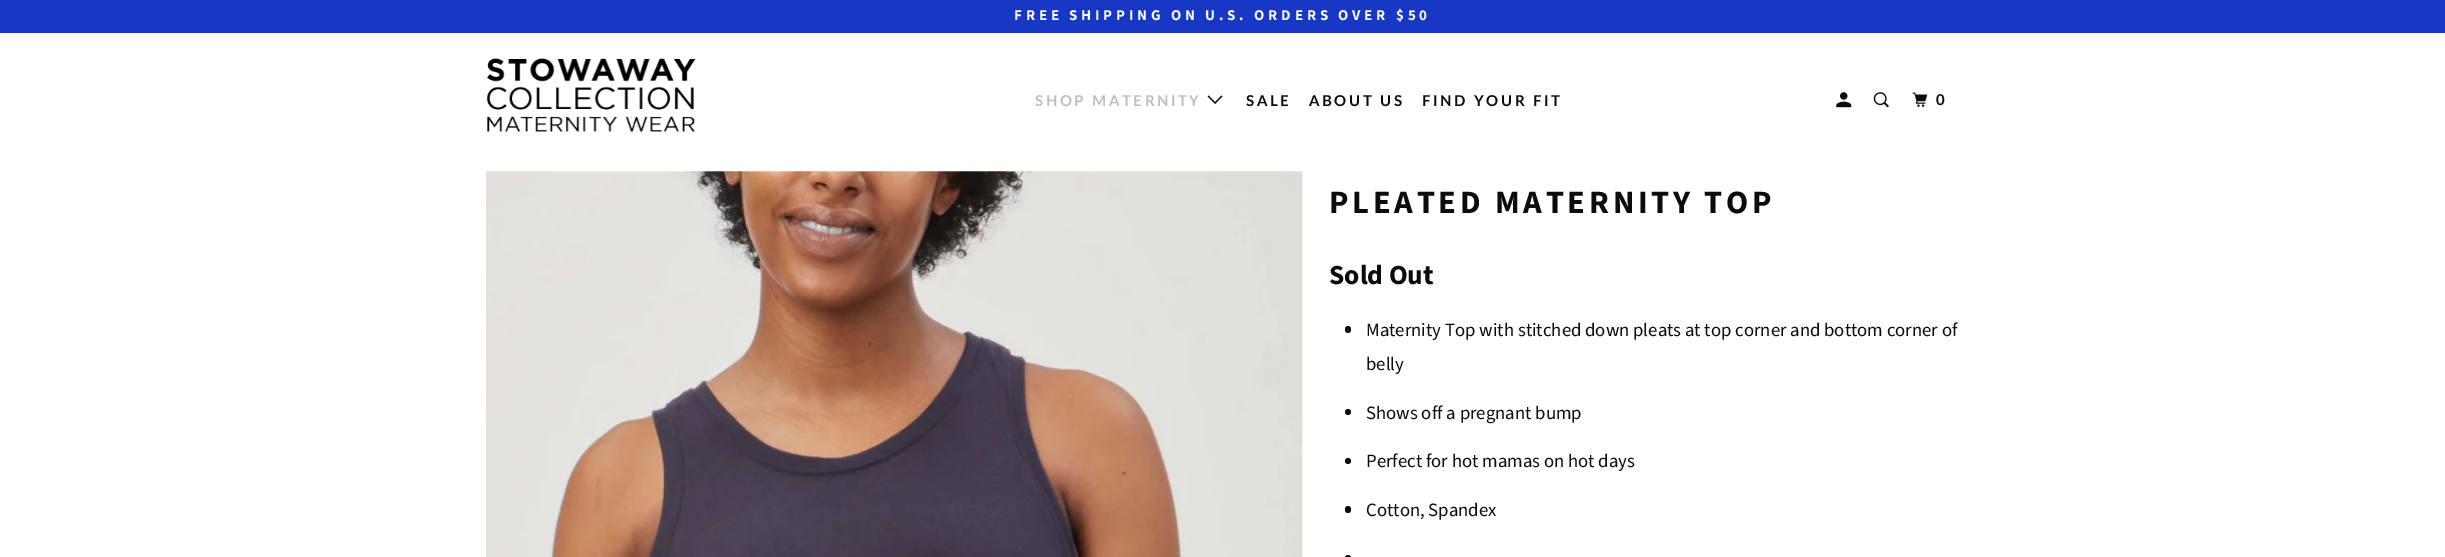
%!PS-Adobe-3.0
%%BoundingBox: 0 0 2445 557
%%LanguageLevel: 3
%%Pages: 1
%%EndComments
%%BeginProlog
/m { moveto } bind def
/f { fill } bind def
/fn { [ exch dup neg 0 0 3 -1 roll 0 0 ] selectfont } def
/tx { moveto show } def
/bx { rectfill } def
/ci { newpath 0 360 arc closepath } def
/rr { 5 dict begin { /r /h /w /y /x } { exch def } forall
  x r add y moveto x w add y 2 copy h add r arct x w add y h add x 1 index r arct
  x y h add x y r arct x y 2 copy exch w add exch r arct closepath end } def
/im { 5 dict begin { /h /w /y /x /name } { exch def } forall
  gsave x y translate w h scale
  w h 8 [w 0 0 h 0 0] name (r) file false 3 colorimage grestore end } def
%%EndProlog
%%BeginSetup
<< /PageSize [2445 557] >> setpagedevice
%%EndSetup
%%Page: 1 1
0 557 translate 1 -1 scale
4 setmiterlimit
1 setgray
0 0 2445 557 bx
0.086 0.22 0.769 setrgbcolor
0 0 2445 33 bx
/SourceSansPro-Bold 15 fn
0.98 setgray
1014 20 m 3.75 0 (FREE SHIPPING ON U.S. ORDERS OVER $50) ashow
(image0.raw) 486 58 210 75 im
/Lato-Bold 15 fn
0.761 0.741 0.741 setrgbcolor
1035 106 m 2.5 0 (SHOP MATERNITY) ashow
(image1.raw) 1207 95 16 9 im
0.051 0.047 0.047 setrgbcolor
1246 106 m 2.5 0 (SALE) ashow
1309 106 m 2.5 0 (ABOUT US) ashow
1422 106 m 2.5 0 (FIND YOUR FIT) ashow
(image2.raw) 1836 92 16 16 im
(image3.raw) 1873 92 16 16 im
(image4.raw) 1912 92 16 15 im
1936 105 m 2.5 0 (0) ashow
(image5.raw) 486 171 817 386 im
/SourceSansPro-Bold 32.5 fn
1329 213 m 3.75 0 (PLEATED MATERNITY TOP) ashow
/SourceSansPro-Bold 27.5 fn
(Sold Out) 1329 284 tx
1345 326 6 7 3 rr f
/SourceSansPro-Regular 18.75 fn
(Maternity Top with stitched down pleats at top corner and bottom corner of) 1366 336 tx
(belly) 1366 370 tx
1348 412 3 ci f
(Shows off a pregnant bump) 1366 419 tx
1348 461 3 ci f
(Perfect for hot mamas on hot days) 1366 467 tx
1345 506 6 7 3 rr f
(Cotton, Spandex) 1366 516 tx
1345 555 6 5 3 rr f
showpage
%%EOF
